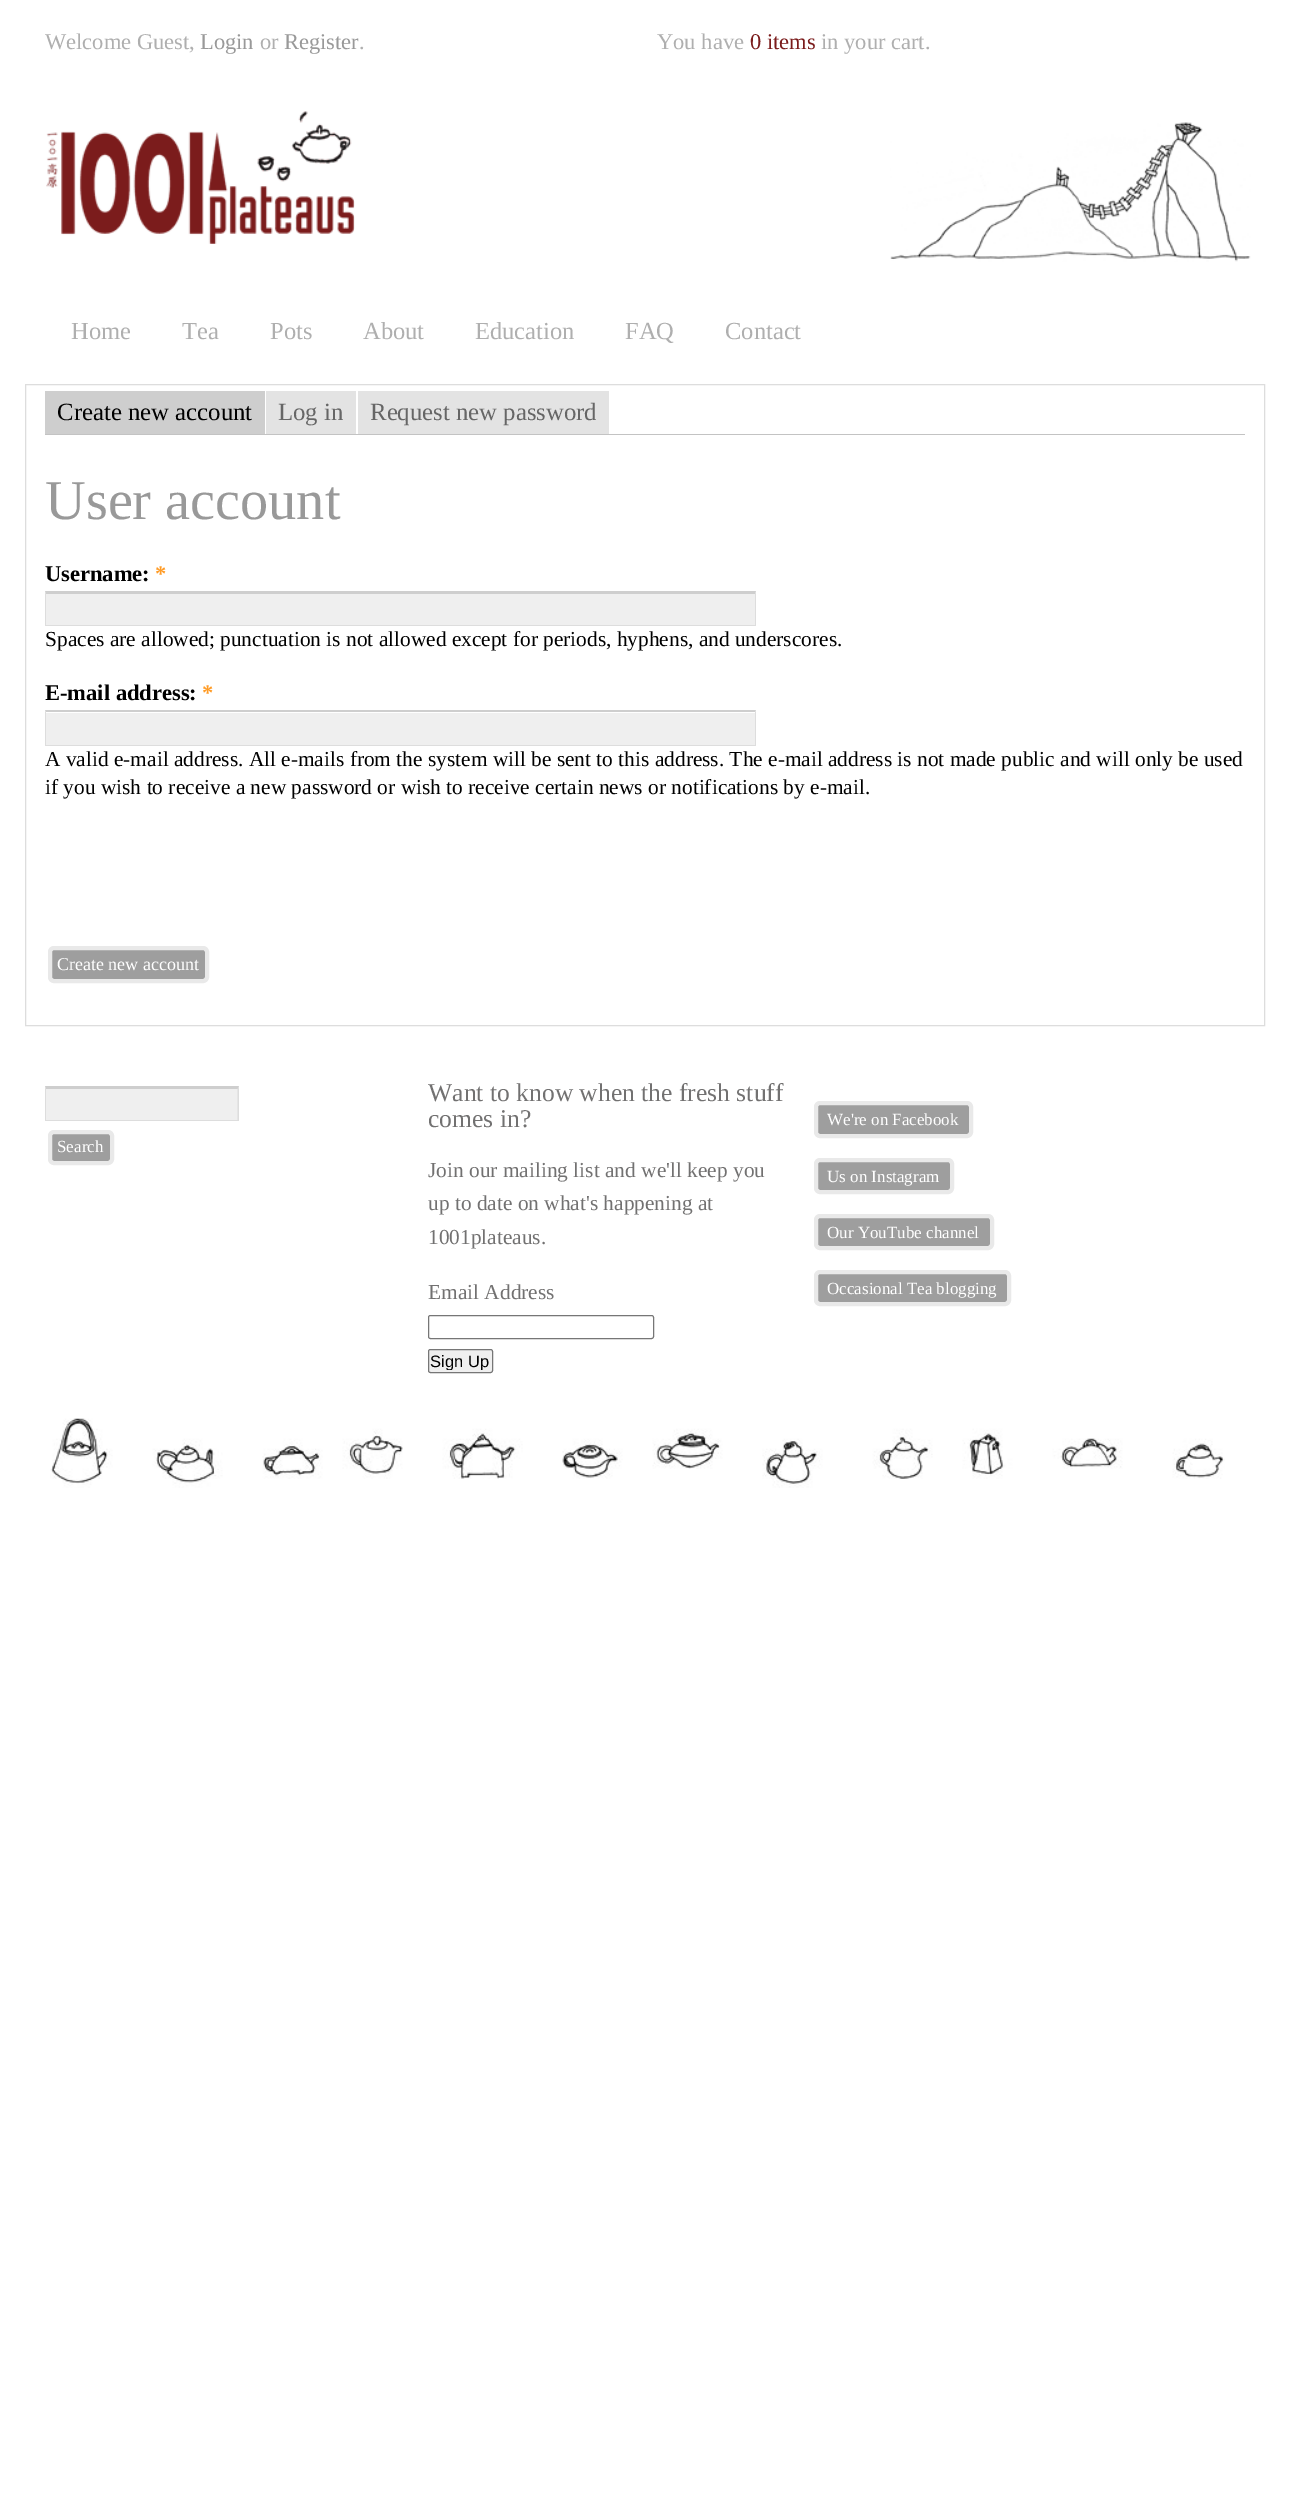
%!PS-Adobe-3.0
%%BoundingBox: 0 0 1289 2519
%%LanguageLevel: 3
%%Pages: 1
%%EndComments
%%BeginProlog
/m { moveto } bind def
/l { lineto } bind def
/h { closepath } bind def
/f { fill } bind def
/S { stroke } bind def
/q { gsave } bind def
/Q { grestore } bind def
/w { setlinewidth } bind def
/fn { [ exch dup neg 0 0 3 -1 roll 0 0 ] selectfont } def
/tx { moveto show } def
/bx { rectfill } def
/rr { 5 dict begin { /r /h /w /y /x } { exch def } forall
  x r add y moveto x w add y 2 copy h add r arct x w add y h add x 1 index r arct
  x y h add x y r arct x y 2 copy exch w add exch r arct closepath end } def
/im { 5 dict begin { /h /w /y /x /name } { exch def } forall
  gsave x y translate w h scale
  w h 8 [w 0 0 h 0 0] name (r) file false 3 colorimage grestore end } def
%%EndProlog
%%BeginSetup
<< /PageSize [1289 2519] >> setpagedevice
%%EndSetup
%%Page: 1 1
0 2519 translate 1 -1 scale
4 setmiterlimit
1 setgray
0 0 1289 2519 bx
/LiberationSerif-Regular 22.5 fn
0.686 setgray
(Welcome Guest,) 45 49 tx
0.6 setgray
(Login) 200 49 tx
0.686 setgray
(or) 260 49 tx
0.6 setgray
(Register) 284 49 tx
0.686 setgray
(.) 359 49 tx
(You have) 657 49 tx
0.482 0.11 0.11 setrgbcolor
(0 items) 750 49 tx
0.686 setgray
(in your cart.) 821 49 tx
(image0.raw) 46 111 309 133 im
(image1.raw) 890 122 361 140 im
/LiberationSerif-Regular 24.5 fn
(Home) 71 339 tx
(Tea) 182 339 tx
(Pots) 270 339 tx
(About) 363 339 tx
(Education) 475 339 tx
(FAQ) 625 339 tx
(Contact) 725 339 tx
0.867 setgray
25.5 384.5 1239 641 rectstroke
0.765 setgray
45 434 1200 1 bx
0.808 setgray
45 391 220 43 bx
/LiberationSerif-Regular 24.75 fn
0 setgray
(Create new account) 57 420 tx
0.89 setgray
266 391 90 43 bx
0.4 setgray
(Log in) 278 420 tx
0.89 setgray
358 391 251 43 bx
0.4 setgray
(Request new password) 370 420 tx
/LiberationSerif-Regular 56.25 fn
0.6 setgray
(User account) 45 519 tx
/LiberationSerif-Bold 22.5 fn
0 setgray
(Username:) 45 581 tx
1 0.612 0.153 setrgbcolor
(*) 155 581 tx
0.937 setgray
46 594 709 31 bx
0.808 setgray
45 591 m 756 591 l 755 594 l 46 594 l h f
0.867 setgray
756 591 m 756 626 l 755 625 l 755 594 l h f
45 625 711 1 bx
45 626 m 45 591 l 46 594 l 46 625 l h f
/LiberationSerif-Regular 21.38 fn
0 setgray
(Spaces are allowed; punctuation is not allowed except for periods, hyphens, and underscores.) 45 646 tx
/LiberationSerif-Bold 22.5 fn
(E-mail address:) 45 700 tx
1 0.612 0.153 setrgbcolor
(*) 202 700 tx
0.937 setgray
46 713 709 32 bx
0.808 setgray
45 710 m 756 710 l 755 712 l 46 712 l h f
0.867 setgray
756 710 m 756 746 l 755 745 l 755 712.5 l h f
45 745 711 1 bx
45 746 m 45 710 l 46 712.5 l 46 745 l h f
/LiberationSerif-Regular 21.38 fn
0 setgray
(A valid e-mail address. All e-mails from the system will be sent to this address. The e-mail address is not made public and will only be used) 45 766 tx
(if you wish to receive a new password or wish to receive certain news or notifications by e-mail.) 45 794 tx
0.62 setgray
50 948 157 33 4 rr q f Q
0.914 setgray
4 w
S
/LiberationSerif-Regular 18 fn
1 setgray
(Create new account) 57 970 tx
0.937 setgray
46 1089 192 31 bx
0.808 setgray
45 1086 m 239 1086 l 238 1089 l 46 1089 l h f
0.867 setgray
239 1086 m 239 1121 l 237.5 1120 l 237.5 1089 l h f
45 1120 194 1 bx
45 1121 m 45 1086 l 46 1089 l 46 1120 l h f
0.62 setgray
50 1132 62 31 4 rr q f Q
0.914 setgray
S
/LiberationSerif-Regular 17 fn
1 setgray
(Search) 57 1152 tx
/LiberationSerif-Regular 25.6 fn
0.447 0.443 0.443 setrgbcolor
(Want to know when the fresh stuff) 428 1101 tx
(comes in?) 428 1127 tx
/LiberationSerif-Regular 21.38 fn
(Join our mailing list and we'll keep you) 428 1177 tx
(up to date on what's happening at) 428 1210 tx
(1001plateaus.) 428 1244 tx
(Email Address) 428 1299 tx
0.463 setgray
1 w
428.5 1315.5 225 23 2 rr S
0.937 setgray
428.5 1349.5 64 23 2 rr q f Q
0.463 setgray
S
q
430 1351 60 19 rectclip
/LiberationSans-Regular 16.5 fn
0 setgray
(Sign Up) 430 1367 tx
Q
0.62 setgray
816 1103 155 33 4 rr q f Q
0.914 setgray
4 w
S
/LiberationSerif-Regular 17 fn
1 setgray
(We're on Facebook) 827 1125 tx
0.62 setgray
816 1160 136 32 4 rr q f Q
0.914 setgray
S
1 setgray
(Us on Instagram) 827 1182 tx
0.62 setgray
816 1216 176 32 4 rr q f Q
0.914 setgray
S
1 setgray
(Our YouTube channel) 827 1238 tx
0.62 setgray
816 1272 193 32 4 rr q f Q
0.914 setgray
S
1 setgray
(Occasional Tea blogging) 827 1294 tx
(image2.raw) 50 1418 1175 70 im
showpage
%%EOF
